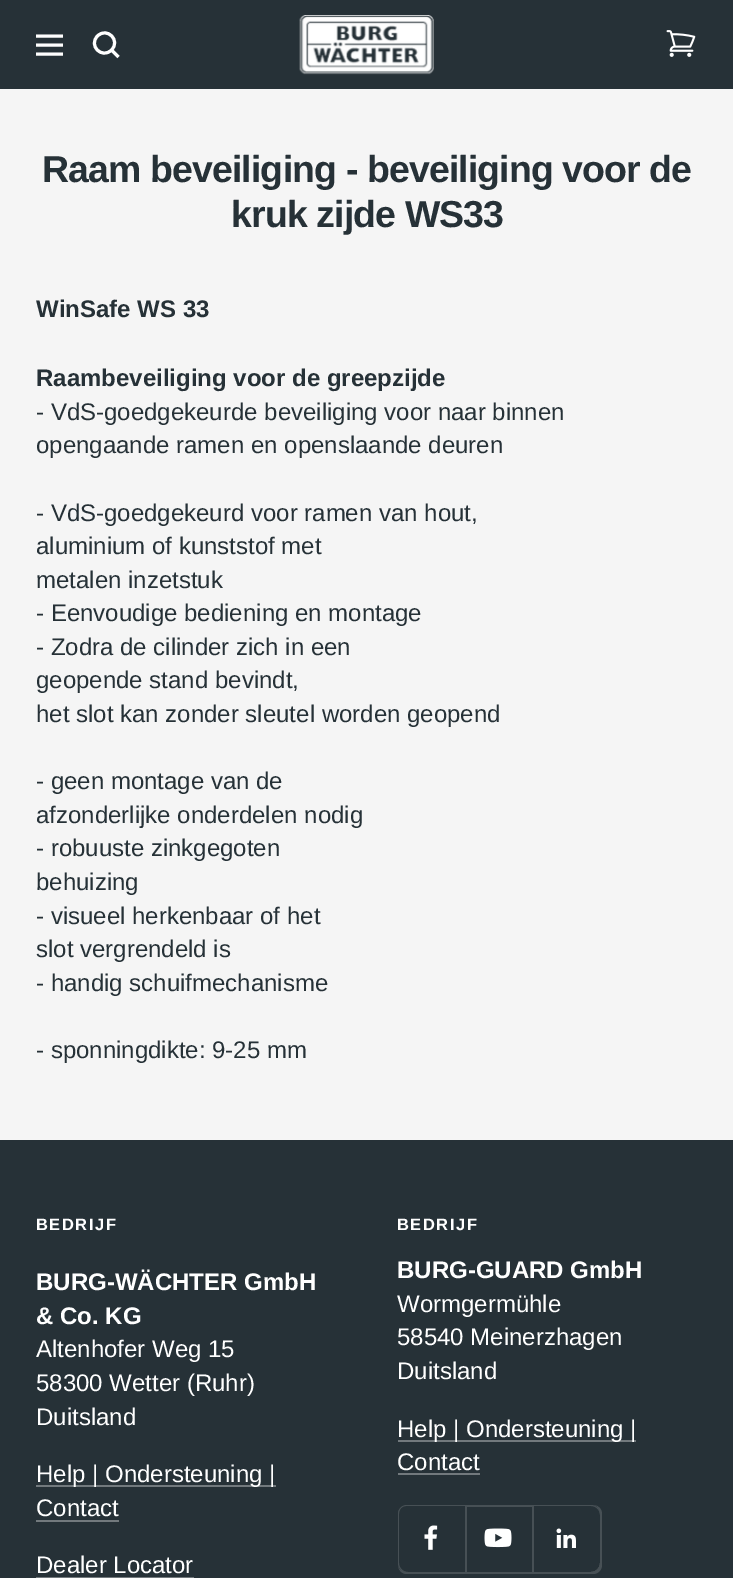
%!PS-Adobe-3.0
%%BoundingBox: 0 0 733 1578
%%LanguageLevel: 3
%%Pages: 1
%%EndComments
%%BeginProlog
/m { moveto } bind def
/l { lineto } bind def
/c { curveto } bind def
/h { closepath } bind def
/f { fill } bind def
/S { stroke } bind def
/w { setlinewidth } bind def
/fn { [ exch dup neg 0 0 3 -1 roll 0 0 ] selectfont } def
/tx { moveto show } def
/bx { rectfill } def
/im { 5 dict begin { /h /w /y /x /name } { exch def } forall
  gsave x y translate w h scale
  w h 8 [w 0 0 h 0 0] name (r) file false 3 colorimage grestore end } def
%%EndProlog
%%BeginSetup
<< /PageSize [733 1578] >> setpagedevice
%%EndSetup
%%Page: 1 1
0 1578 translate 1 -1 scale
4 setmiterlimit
0.961 setgray
0 0 733 1578 bx
0.149 0.192 0.216 setrgbcolor
0 0 733 89 bx
1 setgray
3 w
36 36 m 63 36 l 36 54 m 63 54 l h 36 45 m 63 45 l h S
111.5 50 m 121 40.5 107 26.5 97.5 36 c 88 45.5 102 59.5 111.5 50 c h 111.5 50 m 118.5 57 l S
(image0.raw) 299 15 135 60 im
(image1.raw) 666 30 30 27 im
/LiberationSans-Bold 37.5 fn
0.149 0.192 0.216 setrgbcolor
42 182 m -0.9 0 (Raam beveiliging - beveiliging voor de) ashow
231 227 m -0.9 0 (kruk zijde WS33) ashow
/LiberationSans-Bold 24 fn
(WinSafe WS 33) 36 317 tx
(Raambeveiliging voor de greepzijde) 36 386 tx
/LiberationSans-Regular 24 fn
(- VdS-goedgekeurde beveiliging voor naar binnen) 36 420 tx
(opengaande ramen en openslaande deuren) 36 453 tx
(- VdS-goedgekeurd voor ramen van hout,) 36 521 tx
(aluminium of kunststof met) 36 554 tx
(metalen inzetstuk) 36 588 tx
(- Eenvoudige bediening en montage) 36 621 tx
(- Zodra de cilinder zich in een) 36 655 tx
(geopende stand bevindt,) 36 688 tx
(het slot kan zonder sleutel worden geopend) 36 722 tx
(- geen montage van de) 36 789 tx
(afzonderlijke onderdelen nodig) 36 823 tx
(- robuuste zinkgegoten) 36 856 tx
(behuizing) 36 890 tx
(- visueel herkenbaar of het) 36 924 tx
(slot vergrendeld is) 36 957 tx
(- handig schuifmechanisme) 36 991 tx
(- sponningdikte: 9-25 mm) 36 1058 tx
0 1140 733 438 bx
/LiberationSans-Bold 16.5 fn
1 setgray
36 1230 m 1.5 0 (BEDRIJF) ashow
/LiberationSans-Bold 24 fn
(BURG-WÄCHTER GmbH) 36 1290 tx
(& Co. KG) 36 1324 tx
/LiberationSans-Regular 24 fn
(Altenhofer Weg 15) 36 1357 tx
(58300 Wetter \(Ruhr\)) 36 1391 tx
(Duitsland) 36 1425 tx
0.447 0.475 0.49 setrgbcolor
36 1485 240 2 bx
1 setgray
(Help | Ondersteuning |) 36 1482 tx
(Contact) 36 1516 tx
0.447 0.475 0.49 setrgbcolor
36 1520 83 2 bx
1 setgray
(Dealer Locator) 36 1573 tx
0.447 0.475 0.49 setrgbcolor
36 1577 158 1 bx
/LiberationSans-Bold 16.5 fn
1 setgray
397 1230 m 1.5 0 (BEDRIJF) ashow
/LiberationSans-Bold 24 fn
(BURG-GUARD GmbH) 397 1278 tx
/LiberationSans-Regular 24 fn
(Wormgermühle) 397 1312 tx
(58540 Meinerzhagen) 397 1345 tx
(Duitsland) 397 1379 tx
0.447 0.475 0.49 setrgbcolor
398 1440 238 2 bx
1 setgray
(Help | Ondersteuning |) 397 1437 tx
(Contact) 397 1470 tx
0.447 0.475 0.49 setrgbcolor
398 1473 82 2 bx
0.278 0.314 0.333 setrgbcolor
400 1569 m 402 1572 405 1574 408 1574 c 467 1574 l 467 1506 l 465 1506 l 465 1572 l 406 1572 l 404 1572 402 1571 400 1569 c h f
398 1566 m 399 1571 402 1574 407 1574 c 465 1574 l 465 1572 l 406 1572 l 403 1572 399 1570 398 1566 c h f
465 1505 2 1 bx
406 1506 m 465 1506 l 465 1505 l 407 1505 l 402 1505 398 1509 398 1514 c 398 1515 l 398 1510 402 1506 406 1506 c h f
403 1506 m 400 1508 398 1511 398 1514 c 398 1563 l 398 1568 402 1572 407 1572 c 408 1572 l 403 1572 399 1568 399 1563 c 399 1514 l 399 1511 400 1508 403 1506 c h f
(image2.raw) 424 1525 14 25 im
467 1572 m 467 1574 l 534 1574 l 534 1506 l 532 1506 l 532 1572 l h f
532 1505 2 1 bx
465 1505 68 2 bx
(image3.raw) 484 1528 28 20 im
534 1572 m 534 1574 l 593 1574 l 598 1574 602 1570 602 1565 c 602 1515 l 602 1512 600 1509 597 1507 c 599 1509 600 1511 600 1514 c 600 1563 l 600 1568 596 1572 591 1572 c h f
533 1572 m 533 1574 l 591 1574 l 596 1574 600 1570 600 1565 c 600 1563 l 600 1568 596 1572 591 1572 c h f
591 1572 m 593 1572 l 598 1572 602 1568 602 1563 c 602 1514 l 602 1509 599 1506 594 1505 c 598 1506 600 1510 600 1514 c 600 1563 l 600 1568 596 1572 591 1572 c h f
533 1505 m 533 1506 l 591 1506 l 596 1506 600 1510 600 1515 c 600 1510 597 1505 591 1505 c h f
(image4.raw) 556 1528 20 20 im
showpage
%%EOF
